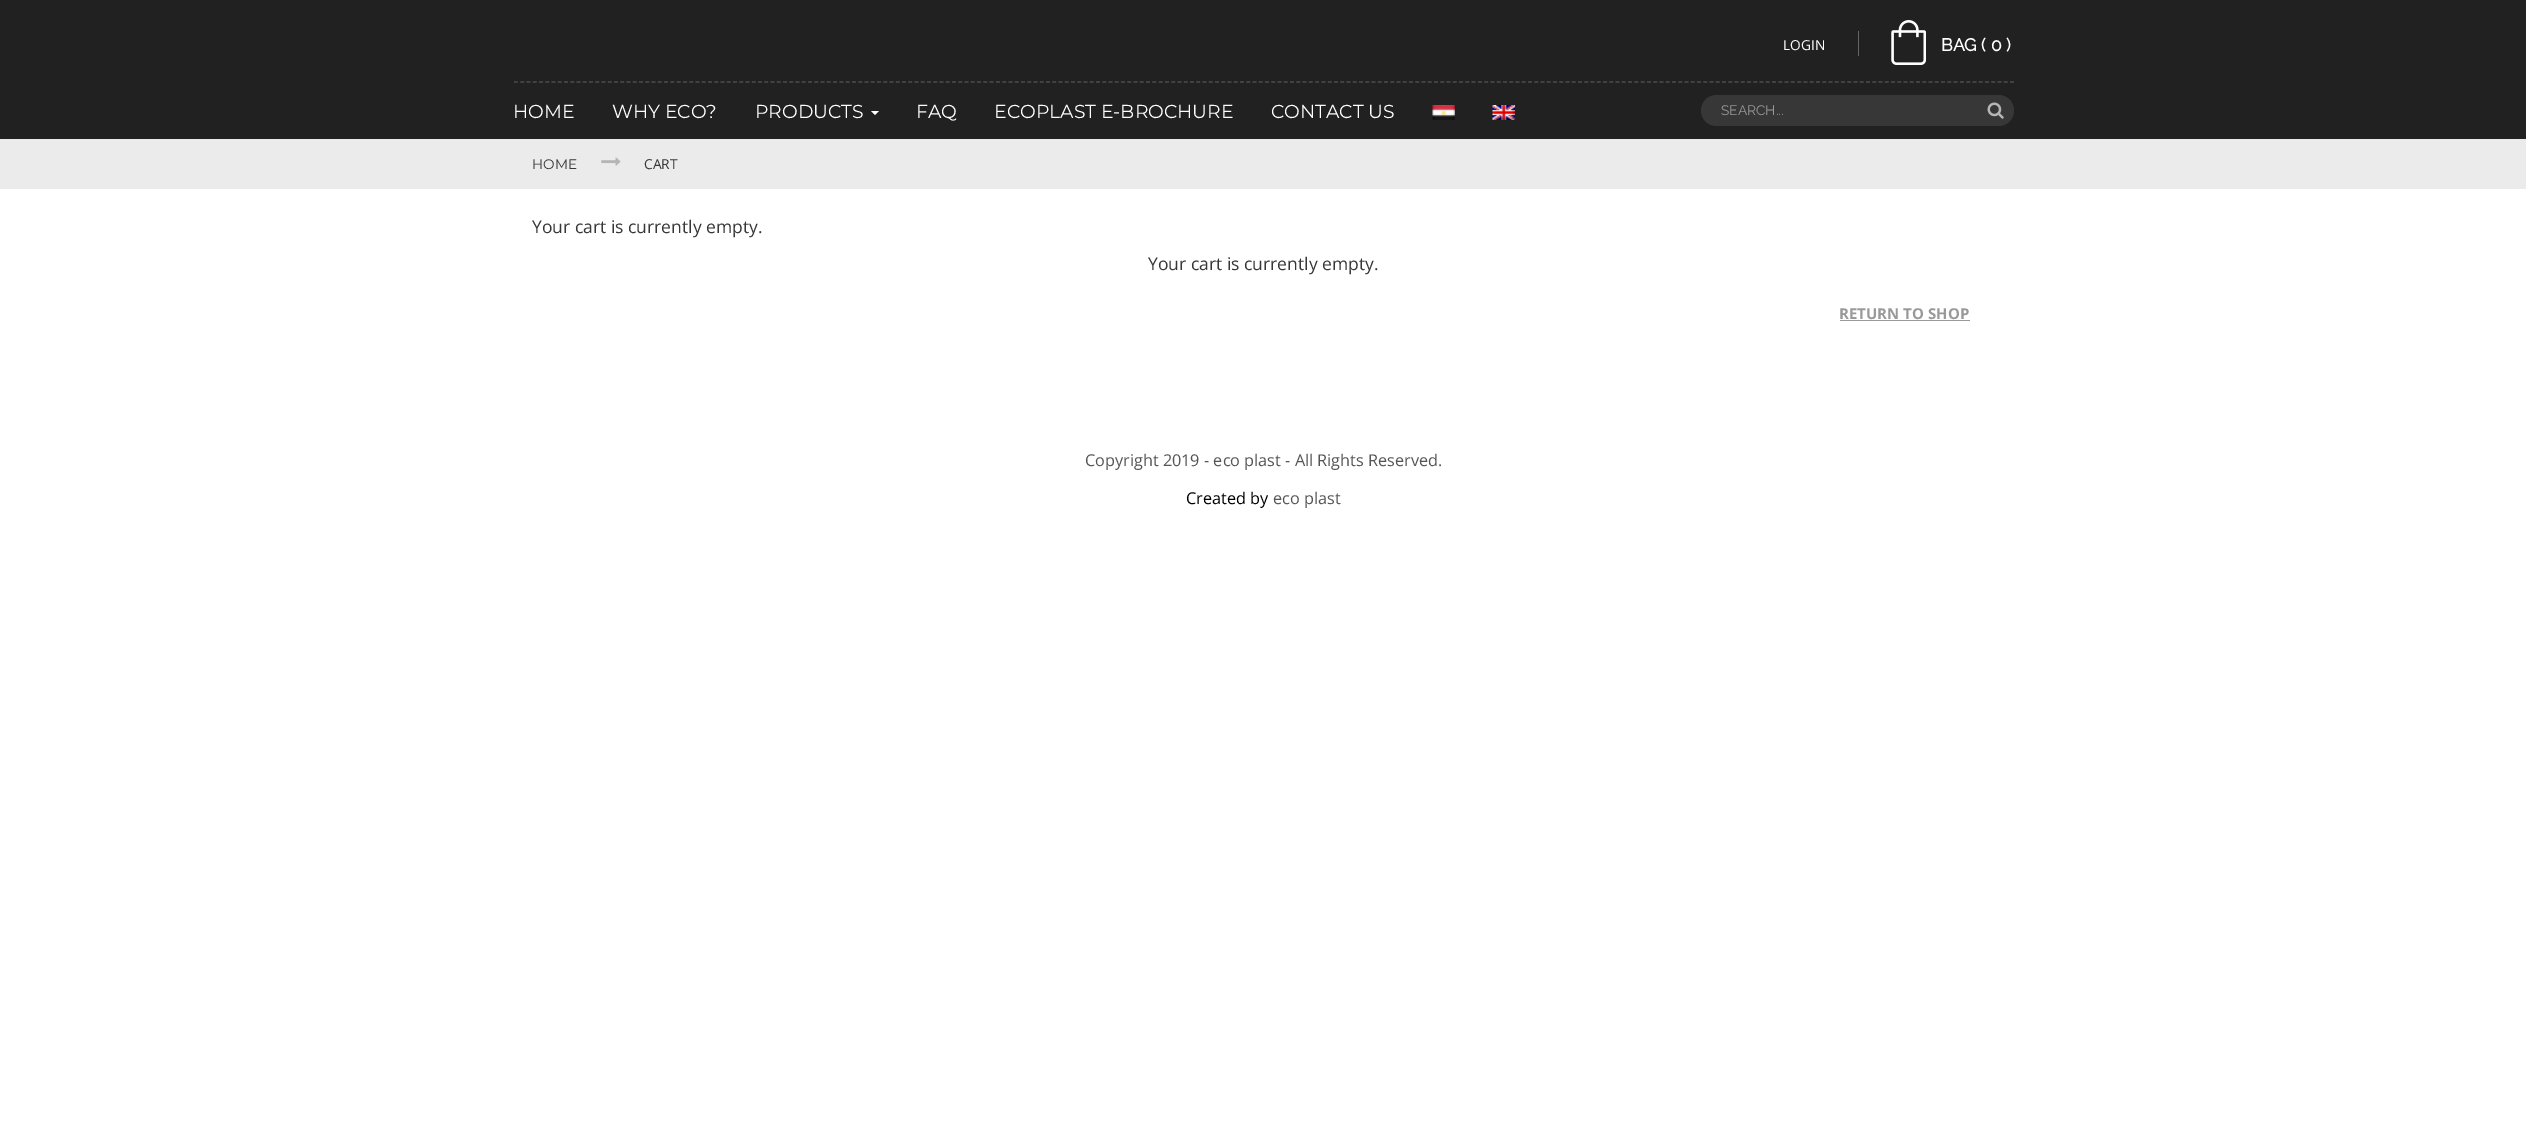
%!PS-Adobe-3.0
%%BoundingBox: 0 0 2526 1136
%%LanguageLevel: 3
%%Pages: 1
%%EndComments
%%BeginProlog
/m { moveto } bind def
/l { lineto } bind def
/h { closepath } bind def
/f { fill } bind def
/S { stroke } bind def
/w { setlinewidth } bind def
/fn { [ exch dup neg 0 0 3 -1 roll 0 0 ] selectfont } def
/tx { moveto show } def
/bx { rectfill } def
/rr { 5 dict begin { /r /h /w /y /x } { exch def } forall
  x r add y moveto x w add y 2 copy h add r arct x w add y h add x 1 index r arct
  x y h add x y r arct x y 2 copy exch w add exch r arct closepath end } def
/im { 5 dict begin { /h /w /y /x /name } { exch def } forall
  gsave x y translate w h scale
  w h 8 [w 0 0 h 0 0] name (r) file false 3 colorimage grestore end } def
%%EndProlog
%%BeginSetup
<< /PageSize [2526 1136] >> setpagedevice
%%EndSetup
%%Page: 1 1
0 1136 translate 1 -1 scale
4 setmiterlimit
1 setgray
0 0 2526 1136 bx
0.129 setgray
0 0 2526 139 bx
0.302 setgray
1.2 w
[3.75 2.51] 0 setdash
514 82 m 2014 82 l S
/OpenSans-Regular 13.75 fn
1 setgray
(LOGIN) 1783 50 tx
0.392 setgray
1858 31 1 25 bx
(image0.raw) 1891 20 35 45 im
/Raleway-Bold 17.5 fn
1 setgray
(BAG \( 0 \)) 1941 51 tx
/Montserrat-Regular 18.75 fn
(HOME) 513 118 tx
(WHY ECO?) 612 118 tx
(PRODUCTS) 755 118 tx
871 111 m 879 111 l 875 115 l h f
(FAQ) 916 118 tx
(ECOPLAST E-BROCHURE) 994 118 tx
(CONTACT US) 1271 118 tx
(image1.raw) 1432 105 23 15 im
(image2.raw) 1492 105 23 15 im
0.216 setgray
1701 95 313 31 15.5 rr f
/Raleway-Thin 13.75 fn
0.6 setgray
(SEARCH...) 1721 115 tx
(image3.raw) 1987 102 17 17 im
0.922 setgray
0 139 2526 50 bx
/Montserrat-Regular 13.75 fn
0.216 setgray
(HOME) 532 169 tx
(image4.raw) 601 157 20 9 im
/OpenSans-Regular 13.75 fn
(CART) 644 169 tx
/OpenSans-Regular 17.5 fn
(Your cart is currently empty.) 532 233 tx
(Your cart is currently empty.) 1148 270 tx
/OpenSans-Bold 15 fn
0.6 setgray
(RETURN TO SHOP) 1839 319 tx
1840 320 130 1 bx
/OpenSans-Regular 16.25 fn
0.333 setgray
(Copyright 2019 - eco plast - All Rights Reserved.) 1085 466 tx
0 setgray
(Created by) 1186 504 tx
0.333 setgray
(eco plast) 1273 504 tx
showpage
%%EOF
